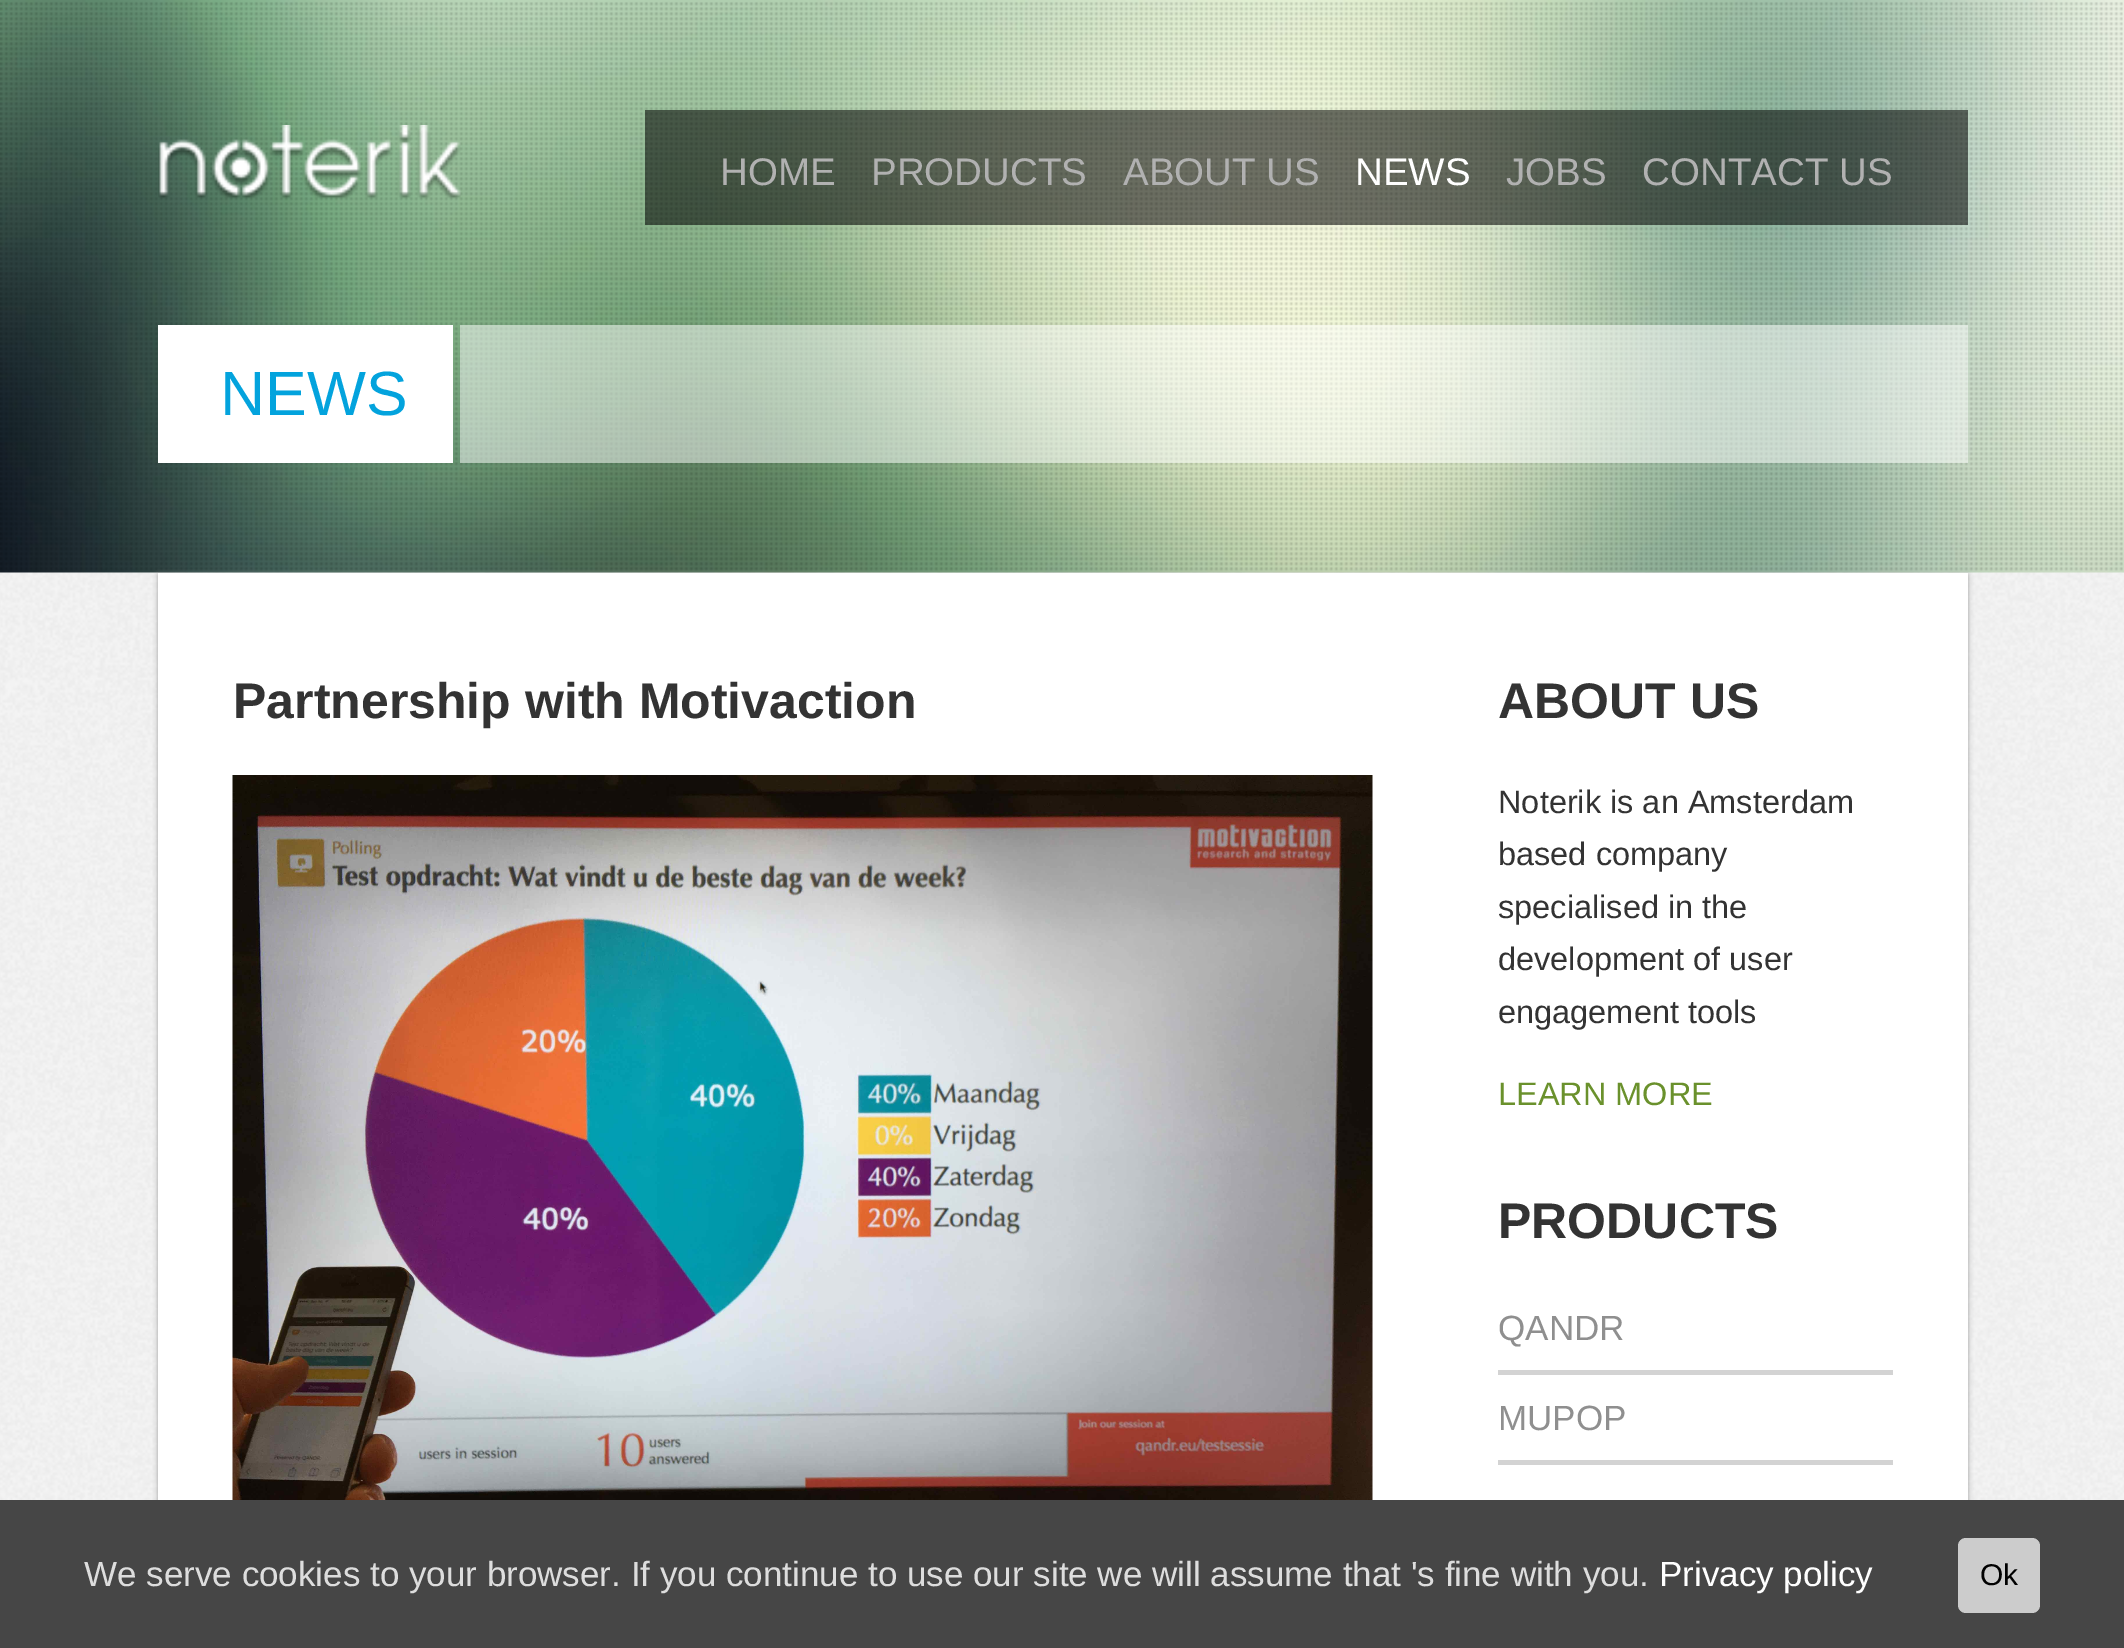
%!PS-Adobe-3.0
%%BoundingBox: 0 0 2124 1648
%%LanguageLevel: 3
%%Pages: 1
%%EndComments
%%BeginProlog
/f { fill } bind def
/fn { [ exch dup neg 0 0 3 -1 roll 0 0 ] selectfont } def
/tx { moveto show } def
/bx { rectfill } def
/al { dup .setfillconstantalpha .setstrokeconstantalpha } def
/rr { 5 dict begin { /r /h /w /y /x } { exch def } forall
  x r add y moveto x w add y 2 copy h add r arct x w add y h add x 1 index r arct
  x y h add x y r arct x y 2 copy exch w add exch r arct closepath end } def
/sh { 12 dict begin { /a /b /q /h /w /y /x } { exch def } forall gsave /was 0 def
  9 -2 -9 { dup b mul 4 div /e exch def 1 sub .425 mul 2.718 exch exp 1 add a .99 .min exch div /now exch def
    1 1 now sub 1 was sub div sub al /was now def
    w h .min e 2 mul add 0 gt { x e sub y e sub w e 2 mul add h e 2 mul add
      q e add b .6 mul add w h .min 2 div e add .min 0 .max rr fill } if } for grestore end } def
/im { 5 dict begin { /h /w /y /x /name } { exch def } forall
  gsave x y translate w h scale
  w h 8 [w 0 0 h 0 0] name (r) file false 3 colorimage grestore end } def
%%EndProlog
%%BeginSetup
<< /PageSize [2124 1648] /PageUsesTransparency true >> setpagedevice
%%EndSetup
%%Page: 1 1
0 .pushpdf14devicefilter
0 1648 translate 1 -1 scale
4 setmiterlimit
1 setgray
0 0 2124 1648 bx
(image0.raw) 0 572 2124 928 im
(image1.raw) 0 0 2124 573 im
(image2.raw) 0 2 2123 569 im
(image3.raw) 158 125 303 74 im
0.55 al
0 setgray
645 110 1323 115 bx
/LiberationSans-Regular 38.5 fn
1 al
0.694 setgray
(HOME) 720 185 tx
(PRODUCTS) 871 185 tx
(ABOUT US) 1123 185 tx
1 setgray
(NEWS) 1355 185 tx
0.694 setgray
(JOBS) 1506 185 tx
(CONTACT US) 1642 185 tx
1 setgray
158 325 295 138 bx
/LiberationSans-Regular 62.5 fn
0.012 0.639 0.867 setrgbcolor
(NEWS) 220 415 tx
0.5 al
1 setgray
460 325 1508 138 bx
1 al
0.62 setgray
158 575 1810 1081 0 2.5 1 sh
1 setgray
158 573 1810 927 bx
/LiberationSans-Bold 50 fn
0.2 setgray
(Partnership with Motivaction) 233 718 tx
(image4.raw) 232 775 1141 725 im
(ABOUT US) 1498 718 tx
/LiberationSans-Regular 32.5 fn
(Noterik is an Amsterdam) 1498 813 tx
(based company) 1498 865 tx
(specialised in the) 1498 918 tx
(development of user) 1498 970 tx
(engagement tools) 1498 1023 tx
0.416 0.569 0.173 setrgbcolor
(LEARN MORE) 1498 1105 tx
/LiberationSans-Bold 50 fn
0.2 setgray
(PRODUCTS) 1498 1238 tx
0.827 setgray
1498 1370 395 5 bx
/LiberationSans-Regular 35 fn
0.561 setgray
(QANDR) 1498 1340 tx
0.827 setgray
1498 1460 395 5 bx
0.561 setgray
(MUPOP) 1498 1430 tx
0.275 setgray
0 1500 2124 148 bx
0.867 setgray
(We serve cookies to your browser. If you continue to use our site we will assume that 's fine with you.) 84 1586 tx
1 setgray
(Privacy policy) 1659 1586 tx
0.8 setgray
1958 1538 82 75 8 rr f
/LiberationSans-Regular 30 fn
0 setgray
(Ok) 1980 1585 tx
.poppdf14devicefilter showpage
%%EOF
